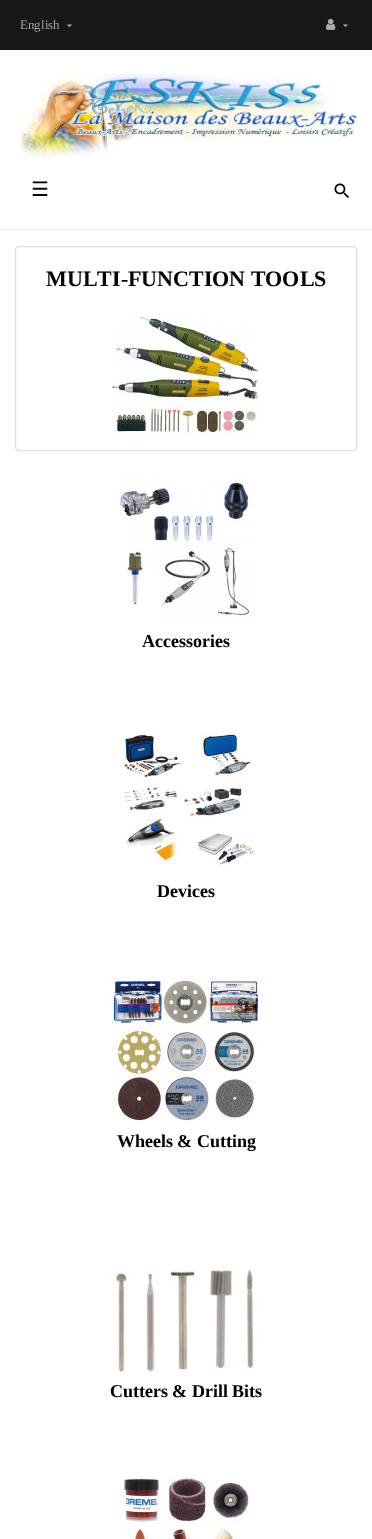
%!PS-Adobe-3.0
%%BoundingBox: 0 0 372 1539
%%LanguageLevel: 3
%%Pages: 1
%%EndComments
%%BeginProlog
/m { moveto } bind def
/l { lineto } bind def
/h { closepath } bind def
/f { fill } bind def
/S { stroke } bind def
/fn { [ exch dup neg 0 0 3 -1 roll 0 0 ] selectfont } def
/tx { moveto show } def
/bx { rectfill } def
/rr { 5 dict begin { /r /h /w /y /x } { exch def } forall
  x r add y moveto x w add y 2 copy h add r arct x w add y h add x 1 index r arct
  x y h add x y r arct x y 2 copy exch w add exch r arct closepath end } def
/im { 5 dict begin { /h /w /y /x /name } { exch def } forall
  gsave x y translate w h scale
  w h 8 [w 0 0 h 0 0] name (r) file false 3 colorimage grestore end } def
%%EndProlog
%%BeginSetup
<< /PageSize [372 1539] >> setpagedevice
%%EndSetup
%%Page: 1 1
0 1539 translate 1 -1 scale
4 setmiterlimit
1 setgray
0 0 372 1539 bx
0.933 setgray
0 229 372 1 bx
0.09 setgray
0 0 372 50 bx
/LiberationSerif-Regular 13 fn
0.667 setgray
(English) 20 29 tx
67 24.5 m 72 24.5 l 69.5 27 l h f
(image0.raw) 326 18 10 12 im
343 24.5 m 348 24.5 l 345.5 27 l h f
(image1.raw) 17 73 340 86 im
/DejaVuSans-Regular 20 fn
0 setgray
(☰) 31 196 tx
(image2.raw) 334 183 15 15 im
0.875 setgray
15.5 246.5 341 204 3.5 rr S
/LiberationSerif-Bold 22 fn
0 setgray
(MULTI-FUNCTION TOOLS) 46 286 tx
(image3.raw) 111 316 149 120 im
(image4.raw) 119 476 136 144 im
/LiberationSerif-Bold 18 fn
(Accessories) 142 647 tx
(image5.raw) 119 734 136 136 im
(Devices) 157 897 tx
(image6.raw) 111 976 150 145 im
(Wheels & Cutting) 117 1147 tx
(image7.raw) 112 1266 143 110 im
(Cutters & Drill Bits) 110 1397 tx
(image8.raw) 119 1476 135 63 im
showpage
%%EOF
